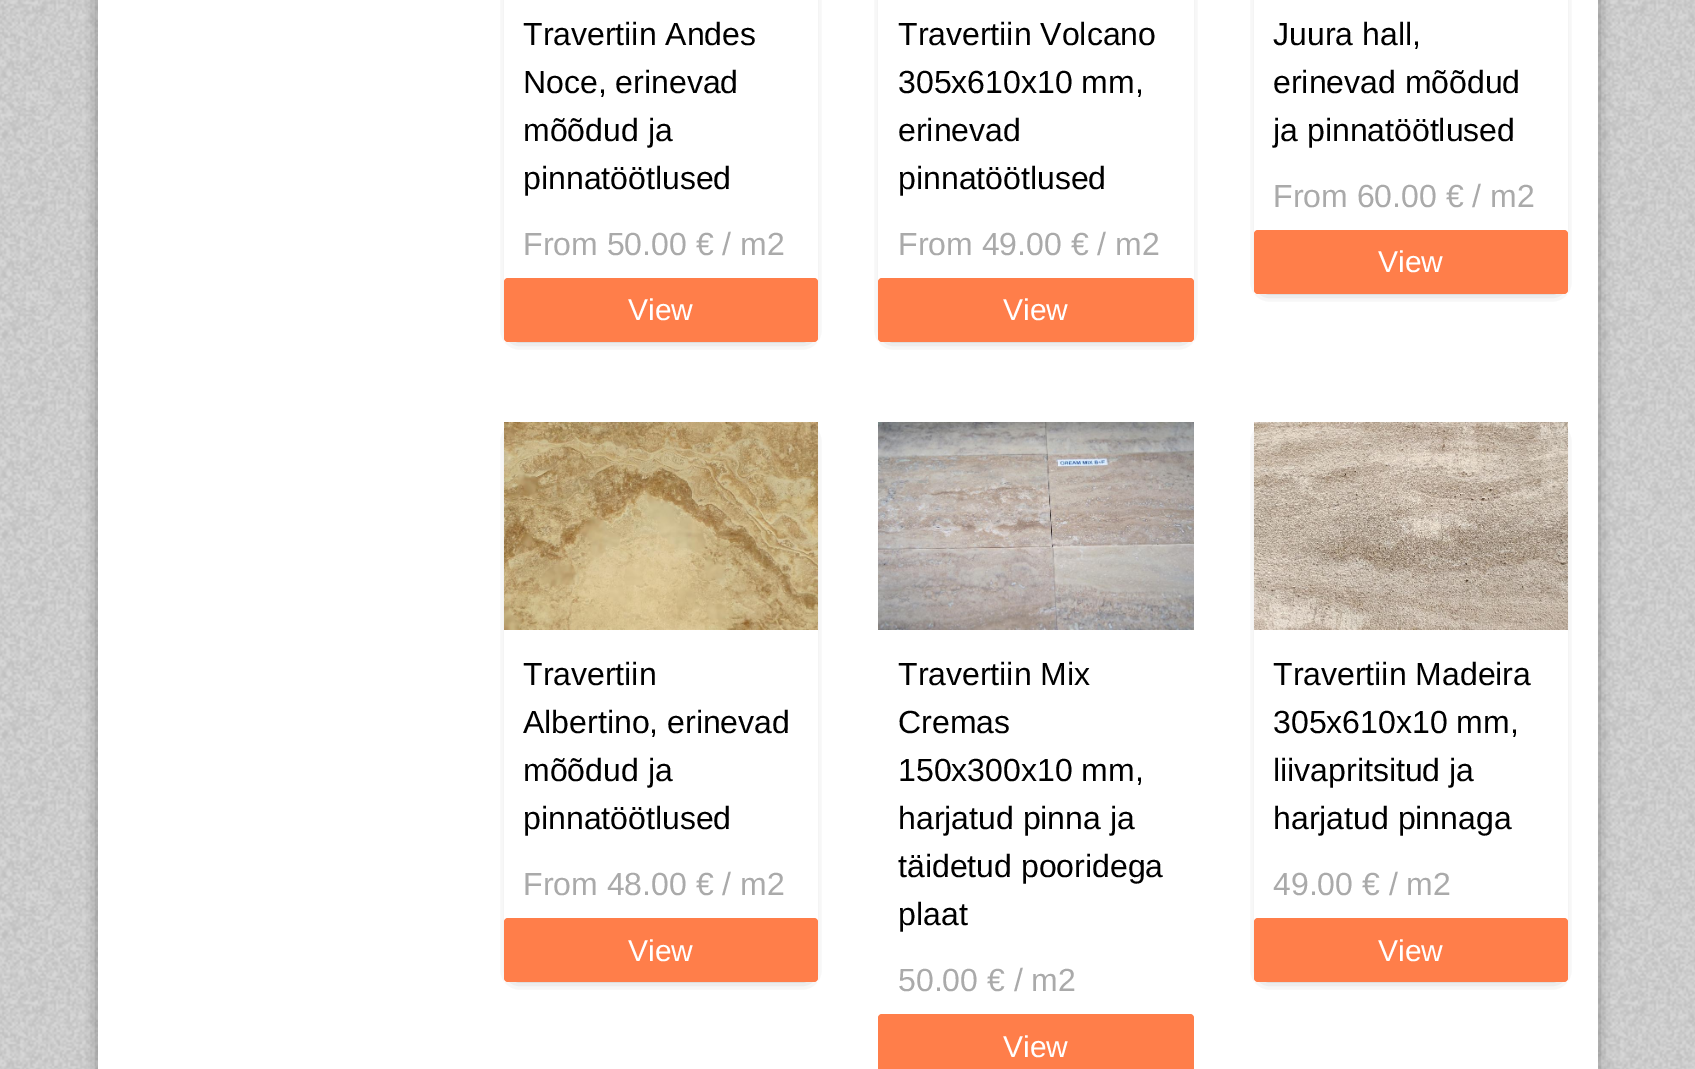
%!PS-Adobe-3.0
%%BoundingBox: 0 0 1695 1069
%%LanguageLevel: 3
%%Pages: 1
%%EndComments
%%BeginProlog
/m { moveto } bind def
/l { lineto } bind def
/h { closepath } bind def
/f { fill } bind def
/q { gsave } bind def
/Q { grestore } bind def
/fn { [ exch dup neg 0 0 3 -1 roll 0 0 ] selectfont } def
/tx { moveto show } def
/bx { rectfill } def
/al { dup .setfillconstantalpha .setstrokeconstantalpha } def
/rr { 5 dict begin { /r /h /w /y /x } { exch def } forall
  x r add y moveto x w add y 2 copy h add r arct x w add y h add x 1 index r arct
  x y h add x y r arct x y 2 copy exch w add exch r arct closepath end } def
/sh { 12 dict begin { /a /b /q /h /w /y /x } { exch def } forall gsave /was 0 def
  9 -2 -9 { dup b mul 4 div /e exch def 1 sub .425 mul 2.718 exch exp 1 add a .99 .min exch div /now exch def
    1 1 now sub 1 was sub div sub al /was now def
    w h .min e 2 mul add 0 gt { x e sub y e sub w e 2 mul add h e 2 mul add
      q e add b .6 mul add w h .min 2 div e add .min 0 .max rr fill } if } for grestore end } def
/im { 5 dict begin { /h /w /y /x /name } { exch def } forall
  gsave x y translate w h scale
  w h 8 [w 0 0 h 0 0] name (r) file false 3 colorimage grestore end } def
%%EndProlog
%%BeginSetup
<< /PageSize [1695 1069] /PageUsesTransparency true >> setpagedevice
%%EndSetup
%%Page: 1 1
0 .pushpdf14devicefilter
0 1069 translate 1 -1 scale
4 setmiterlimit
1 setgray
0 0 1695 1069 bx
(image0.raw) 0 0 1695 1069 im
0 setgray
106 -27 1484 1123 0 9 1 sh
1 setgray
98 0 1500 1069 bx
q
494 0 m 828 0 l 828 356 l 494 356 l h 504 -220 m 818 -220 l 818 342 l 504 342 l h eoclip newpath
0 setgray
516 -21 290 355 0 7 1 sh
Q
/LiberationSans-Regular 32 fn
0 setgray
(Travertiin Andes) 523 45 tx
(Noce, erinevad) 523 93 tx
(mõõdud ja) 523 141 tx
(pinnatöötlused) 523 189 tx
0.667 setgray
(From 50.00 € / m2) 523 255 tx
1 0.494 0.29 setrgbcolor
504 278 314 64 4 rr f
/LiberationSans-Regular 30 fn
1 setgray
(View) 628 320 tx
q
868 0 m 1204 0 l 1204 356 l 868 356 l h 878 -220 m 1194 -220 l 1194 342 l 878 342 l h eoclip newpath
0 setgray
890 -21 292 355 0 7 1 sh
Q
/LiberationSans-Regular 32 fn
0 setgray
(Travertiin Volcano) 898 45 tx
(305x610x10 mm,) 898 93 tx
(erinevad) 898 141 tx
(pinnatöötlused) 898 189 tx
0.667 setgray
(From 49.00 € / m2) 898 255 tx
1 0.494 0.29 setrgbcolor
878 278 316 64 4 rr f
/LiberationSans-Regular 30 fn
1 setgray
(View) 1003 320 tx
q
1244 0 m 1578 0 l 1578 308 l 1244 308 l h 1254 -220 m 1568 -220 l 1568 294 l 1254 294 l h eoclip newpath
0 setgray
1266 -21 290 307 0 7 1 sh
Q
/LiberationSans-Regular 32 fn
0 setgray
(Juura hall,) 1273 45 tx
(erinevad mõõdud) 1273 93 tx
(ja pinnatöötlused) 1273 141 tx
0.667 setgray
(From 60.00 € / m2) 1273 207 tx
1 0.494 0.29 setrgbcolor
1254 230 314 64 4 rr f
/LiberationSans-Regular 30 fn
1 setgray
(View) 1378 272 tx
q
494 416 m 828 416 l 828 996 l 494 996 l h 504 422 m 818 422 l 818 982 l 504 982 l h eoclip newpath
0 setgray
516 438 290 536 0 7 1 sh
Q
(image1.raw) 504 422 314 208 im
/LiberationSans-Regular 32 fn
0 setgray
(Travertiin) 523 685 tx
(Albertino, erinevad) 523 733 tx
(mõõdud ja) 523 781 tx
(pinnatöötlused) 523 829 tx
0.667 setgray
(From 48.00 € / m2) 523 895 tx
1 0.494 0.29 setrgbcolor
504 918 314 64 4 rr f
/LiberationSans-Regular 30 fn
1 setgray
(View) 628 961 tx
(image2.raw) 878 422 316 208 im
/LiberationSans-Regular 32 fn
0 setgray
(Travertiin Mix) 898 685 tx
(Cremas) 898 733 tx
(150x300x10 mm,) 898 781 tx
(harjatud pinna ja) 898 829 tx
(täidetud pooridega) 898 877 tx
(plaat) 898 925 tx
0.667 setgray
(50.00 € / m2) 898 991 tx
1 0.494 0.29 setrgbcolor
878 1014 316 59 4 rr f
/LiberationSans-Regular 30 fn
1 setgray
(View) 1003 1057 tx
q
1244 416 m 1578 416 l 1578 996 l 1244 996 l h 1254 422 m 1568 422 l 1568 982 l 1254 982 l h eoclip newpath
0 setgray
1266 438 290 536 0 7 1 sh
Q
(image3.raw) 1254 422 314 208 im
/LiberationSans-Regular 32 fn
0 setgray
(Travertiin Madeira) 1273 685 tx
(305x610x10 mm,) 1273 733 tx
(liivapritsitud ja) 1273 781 tx
(harjatud pinnaga) 1273 829 tx
0.667 setgray
(49.00 € / m2) 1273 895 tx
1 0.494 0.29 setrgbcolor
1254 918 314 64 4 rr f
/LiberationSans-Regular 30 fn
1 setgray
(View) 1378 961 tx
.poppdf14devicefilter showpage
%%EOF
